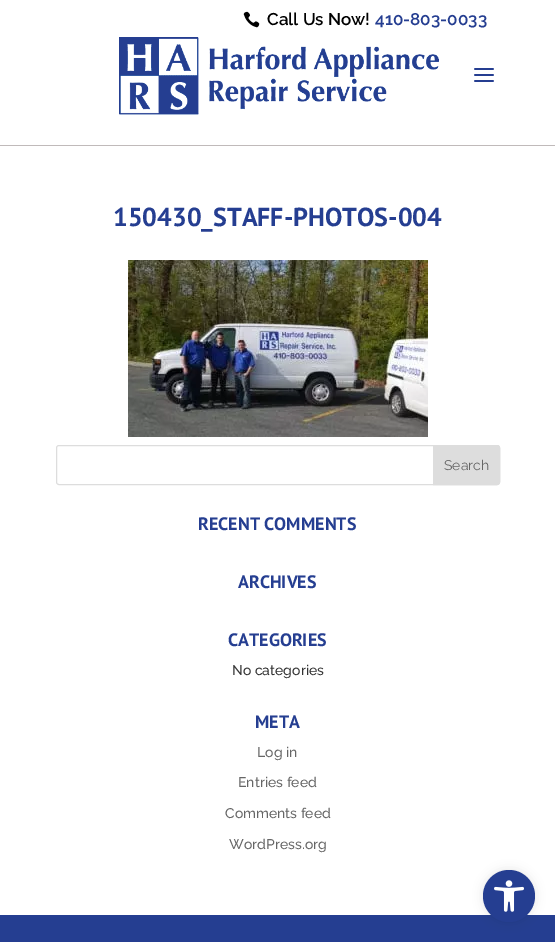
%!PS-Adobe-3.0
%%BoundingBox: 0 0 555 942
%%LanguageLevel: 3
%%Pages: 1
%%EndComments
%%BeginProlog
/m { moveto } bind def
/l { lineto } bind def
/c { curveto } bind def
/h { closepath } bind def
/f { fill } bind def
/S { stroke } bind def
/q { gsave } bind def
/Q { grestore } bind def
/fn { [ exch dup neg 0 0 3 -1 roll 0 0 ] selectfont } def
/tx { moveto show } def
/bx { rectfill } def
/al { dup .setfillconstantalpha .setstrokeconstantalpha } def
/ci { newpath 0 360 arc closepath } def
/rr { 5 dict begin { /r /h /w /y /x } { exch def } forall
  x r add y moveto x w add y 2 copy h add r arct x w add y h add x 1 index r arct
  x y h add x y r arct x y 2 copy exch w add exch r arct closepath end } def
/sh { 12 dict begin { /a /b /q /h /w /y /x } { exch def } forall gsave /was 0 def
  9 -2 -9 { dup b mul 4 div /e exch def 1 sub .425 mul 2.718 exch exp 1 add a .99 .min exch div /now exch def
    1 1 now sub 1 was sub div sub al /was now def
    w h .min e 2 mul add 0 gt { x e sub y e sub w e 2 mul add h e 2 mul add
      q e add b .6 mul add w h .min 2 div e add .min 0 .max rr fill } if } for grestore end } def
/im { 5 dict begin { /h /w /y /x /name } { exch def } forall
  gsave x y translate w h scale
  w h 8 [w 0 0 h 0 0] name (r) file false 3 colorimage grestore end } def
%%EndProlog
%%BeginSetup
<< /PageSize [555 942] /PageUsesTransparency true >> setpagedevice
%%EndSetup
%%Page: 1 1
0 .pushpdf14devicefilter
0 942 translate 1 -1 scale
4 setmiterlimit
1 setgray
0 0 555 942 bx
(image0.raw) 243 11 17 17 im
/Raleway-SemiBold 17 fn
0 setgray
(Call Us Now!) 267 25 tx
0.145 0.243 0.569 setrgbcolor
(410-803-0033) 375 25 tx
0.753 0.729 0.729 setrgbcolor
0 145 555 1 bx
(image1.raw) 119 37 320 78 im
(image2.raw) 474 68 20 14 im
/PTSans-Bold 26 fn
0.145 0.243 0.569 setrgbcolor
(150430_STAFF-PHOTOS-004) 113 226 tx
(image3.raw) 128 260 300 177 im
0.867 setgray
56.5 445.5 443 39 2.5 rr S
433.5 445.5 m 497 445.5 l 498.5 445.5 499.5 446.5 499.5 448 c 499.5 482 l 499.5 483.5 498.5 484.5 497 484.5 c 433.5 484.5 l h q f Q
S
/Raleway-Regular 14 fn
0.4 setgray
(Search) 444 470 tx
/PTSans-Bold 18 fn
0.145 0.243 0.569 setrgbcolor
(RECENT COMMENTS) 198 530 tx
(ARCHIVES) 238 588 tx
(CATEGORIES) 228 646 tx
/Raleway-Medium 14 fn
0.2 setgray
(No categories) 232 675 tx
/PTSans-Bold 18 fn
0.145 0.243 0.569 setrgbcolor
(META) 255 728 tx
/Raleway-Medium 14 fn
0.4 setgray
(Log in) 257 757 tx
(Entries feed) 238 787 tx
(Comments feed) 225 818 tx
(WordPress.org) 229 849 tx
0.145 0.243 0.569 setrgbcolor
0 915 555 27 bx
0 setgray
483 870 52 52 26 5 0.1 sh
0.145 0.243 0.569 setrgbcolor
509 896 26 ci f
(image4.raw) 494 880 30 32 im
.poppdf14devicefilter showpage
%%EOF
